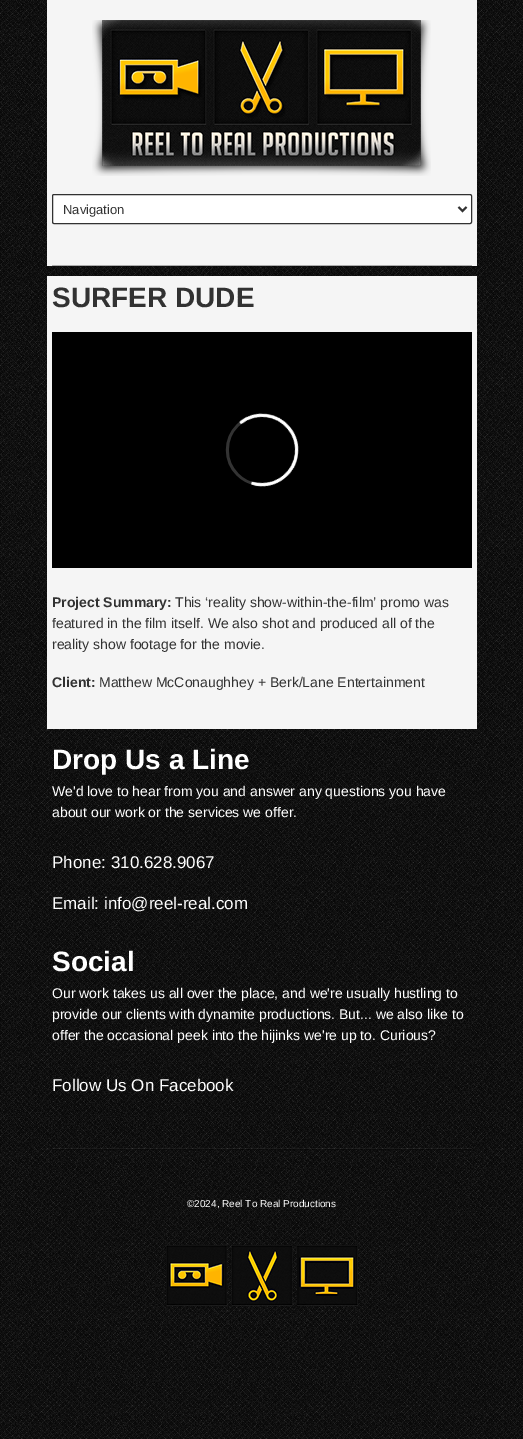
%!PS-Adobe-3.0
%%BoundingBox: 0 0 523 1439
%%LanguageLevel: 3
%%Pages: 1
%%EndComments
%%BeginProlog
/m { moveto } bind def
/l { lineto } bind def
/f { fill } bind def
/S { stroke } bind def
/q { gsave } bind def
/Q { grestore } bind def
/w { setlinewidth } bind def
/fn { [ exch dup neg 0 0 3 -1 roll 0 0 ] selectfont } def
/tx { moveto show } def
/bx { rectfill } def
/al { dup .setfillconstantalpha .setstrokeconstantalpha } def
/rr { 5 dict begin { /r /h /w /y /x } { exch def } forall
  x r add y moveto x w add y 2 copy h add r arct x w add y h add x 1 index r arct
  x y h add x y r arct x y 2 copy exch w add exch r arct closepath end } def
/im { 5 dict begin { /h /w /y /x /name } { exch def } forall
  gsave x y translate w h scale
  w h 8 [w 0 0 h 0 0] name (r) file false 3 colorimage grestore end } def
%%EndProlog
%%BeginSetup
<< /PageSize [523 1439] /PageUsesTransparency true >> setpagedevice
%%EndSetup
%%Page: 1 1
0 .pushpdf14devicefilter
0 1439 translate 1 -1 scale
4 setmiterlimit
1 setgray
0 0 523 1439 bx
(image0.raw) 0 0 523 1439 im
0.961 setgray
47 0 430 266 bx
(image1.raw) 92 20 339 156 im
1 setgray
52.5 194.5 419 29 1.5 rr q f Q
0.196 setgray
S
2 w
458.5 207 m 462.5 211 l 466.5 207 l S
/LiberationSans-Regular 13 fn
(Navigation) 63 214 tx
0.675 setgray
52 265 420 1 bx
0.961 setgray
47 276 430 453 bx
/LiberationSans-Bold 28 fn
0.196 setgray
(SURFER DUDE) 52 307 tx
(image2.raw) 52 332 420 236 im
/LiberationSans-Bold 14 fn
(Project Summary:) 52 607 tx
/LiberationSans-Regular 14 fn
(This ‘reality show-within-the-film’ promo was) 175 607 tx
(featured in the film itself. We also shot and produced all of the) 52 628 tx
(reality show footage for the movie.) 52 649 tx
/LiberationSans-Bold 14 fn
(Client:) 52 687 tx
/LiberationSans-Regular 14 fn
(Matthew McConaughhey + Berk/Lane Entertainment) 99 687 tx
/LiberationSans-Bold 28 fn
1 setgray
(Drop Us a Line) 52 769 tx
/LiberationSans-Regular 14 fn
(We'd love to hear from you and answer any questions you have) 52 796 tx
(about our work or the services we offer.) 52 817 tx
/LiberationSans-Regular 17 fn
(Phone: 310.628.9067) 52 868 tx
(Email: info@reel-real.com) 52 909 tx
/LiberationSans-Bold 28 fn
(Social) 52 971 tx
/LiberationSans-Regular 14 fn
(Our work takes us all over the place, and we're usually hustling to) 52 998 tx
(provide our clients with dynamite productions. But... we also like to) 52 1019 tx
(offer the occasional peek into the hijinks we're up to. Curious?) 52 1040 tx
/LiberationSans-Regular 17 fn
(Follow Us On Facebook) 52 1091 tx
0.05 al
52 1148 420 1 bx
0.3 al
0 setgray
52 1149 420 1 bx
/LiberationSans-Regular 10 fn
1 al
1 setgray
(©2024, Reel To Real Productions) 187 1207 tx
(image3.raw) 166 1245 192 61 im
.poppdf14devicefilter showpage
%%EOF
